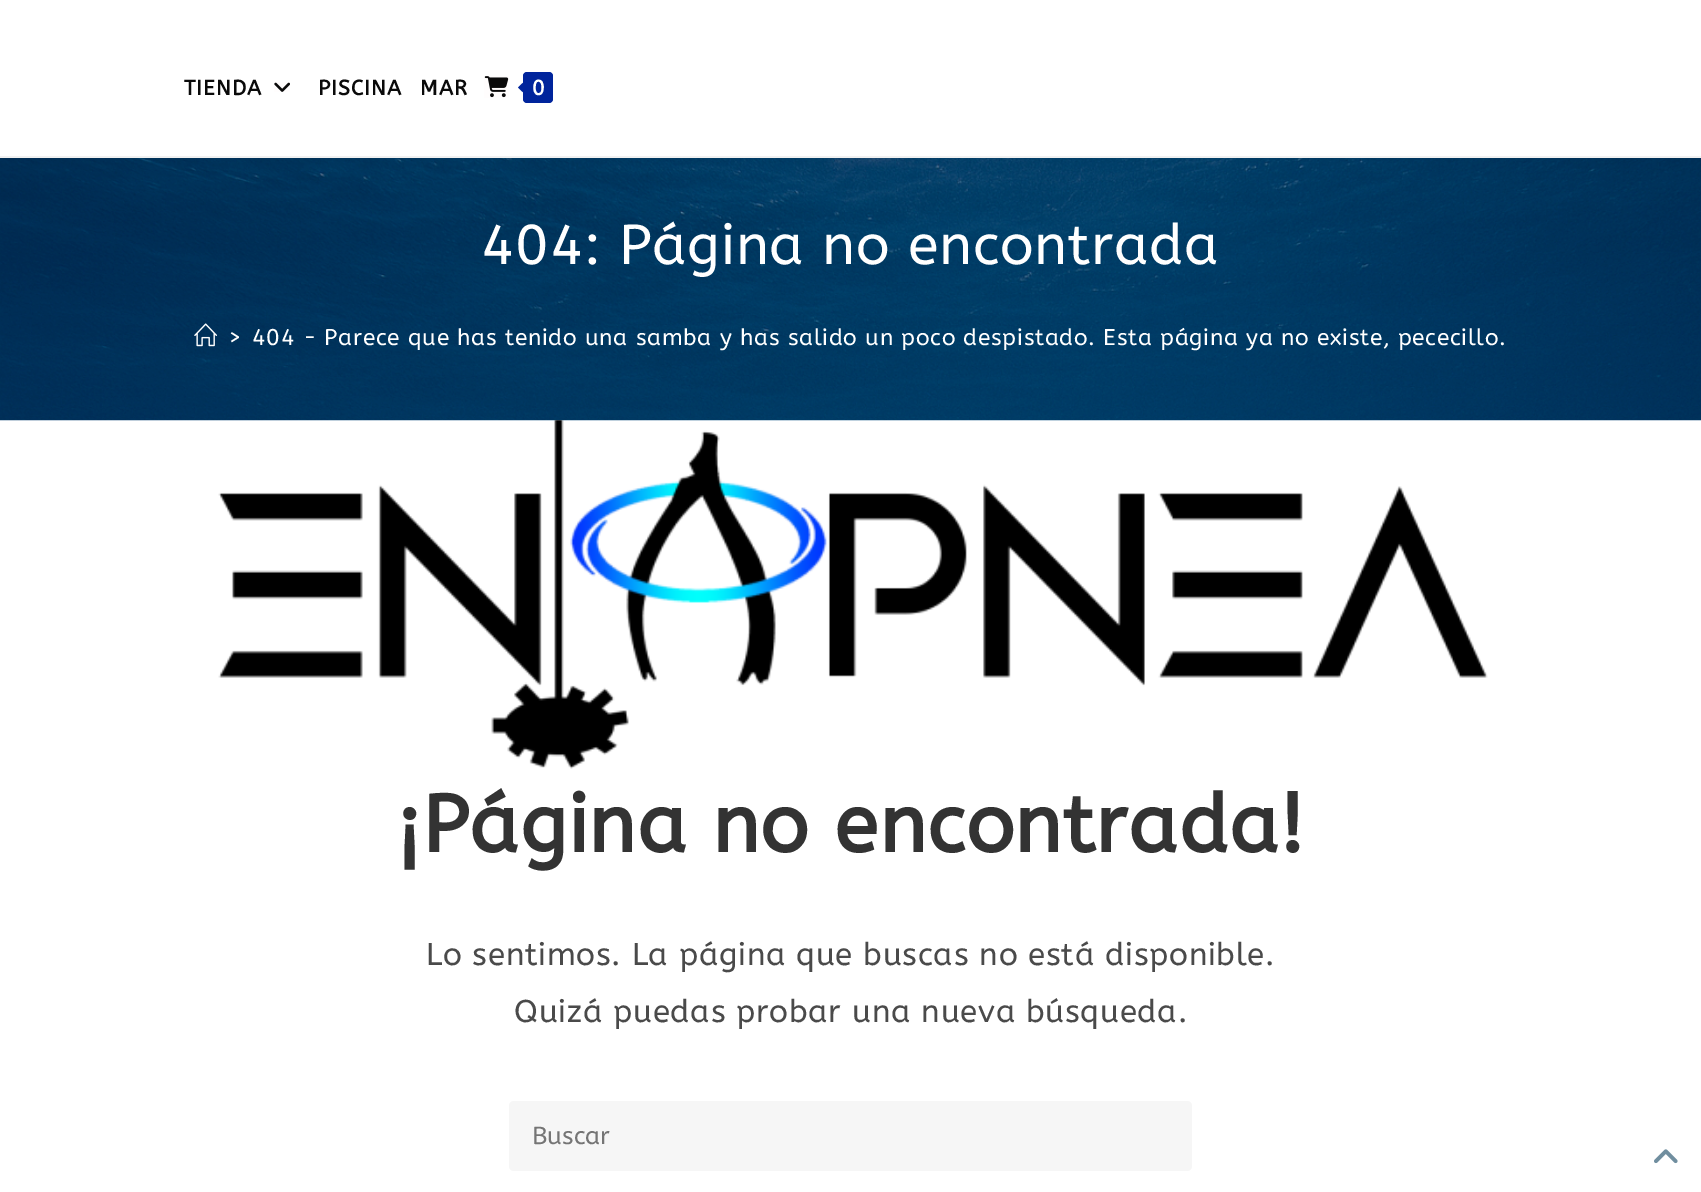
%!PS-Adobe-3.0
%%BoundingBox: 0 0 1701 1192
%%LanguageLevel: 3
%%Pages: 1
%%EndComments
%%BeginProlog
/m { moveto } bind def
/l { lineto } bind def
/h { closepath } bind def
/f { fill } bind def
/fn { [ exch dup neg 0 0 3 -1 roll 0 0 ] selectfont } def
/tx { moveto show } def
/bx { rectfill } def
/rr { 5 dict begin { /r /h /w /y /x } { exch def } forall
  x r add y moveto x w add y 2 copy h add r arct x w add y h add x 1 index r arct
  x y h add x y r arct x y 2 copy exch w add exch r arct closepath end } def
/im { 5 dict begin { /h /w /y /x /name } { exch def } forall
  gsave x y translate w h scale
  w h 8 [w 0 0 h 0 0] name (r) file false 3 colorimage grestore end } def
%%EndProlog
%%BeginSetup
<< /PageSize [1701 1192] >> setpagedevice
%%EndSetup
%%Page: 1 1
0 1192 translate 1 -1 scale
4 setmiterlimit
1 setgray
0 0 1701 1192 bx
0.945 setgray
0 156 1701 2 bx
/ABeeZee-Bold 21 fn
0.039 setgray
184 95 m 1 0 (TIENDA) ashow
(image0.raw) 274 82 16 10 im
318 95 m 1 0 (PISCINA) ashow
420 95 m 1 0 (MAR) ashow
(image1.raw) 484 76 25 22 im
0 0.141 0.612 setrgbcolor
523 72 30 31 4 rr f
527 79 m 527 96 l 518 87.5 l h f
1 setgray
(0) 532 95 tx
(image2.raw) 0 158 1701 263 im
/ABeeZee-Regular 56 fn
481 264 m 0.7 0 (404: Página no encontrada) ashow
(image3.raw) 194 323 23 24 im
/ABeeZee-Regular 22.75 fn
228 345 m 0.7 0 (>) ashow
252 345 m 0.7 0 (404 - Parece que has tenido una samba y has salido un poco despistado. Esta página ya no existe, pececillo.) ashow
(image4.raw) 218 420 1270 349 im
/ABeeZee-Bold 80.5 fn
0.2 setgray
396 852 m 0.7 0 (¡Página no encontrada!) ashow
/ABeeZee-Regular 31.5 fn
0.29 setgray
426 965 m 0.7 0 (Lo sentimos. La página que buscas no está disponible.) ashow
514 1022 m 0.7 0 (Quizá puedas probar una nueva búsqueda.) ashow
0.965 setgray
509 1101 683 70 5 rr f
/ABeeZee-Regular 24.5 fn
0.459 setgray
(Buscar) 532 1144 tx
(image5.raw) 1654 1149 24 15 im
showpage
%%EOF
